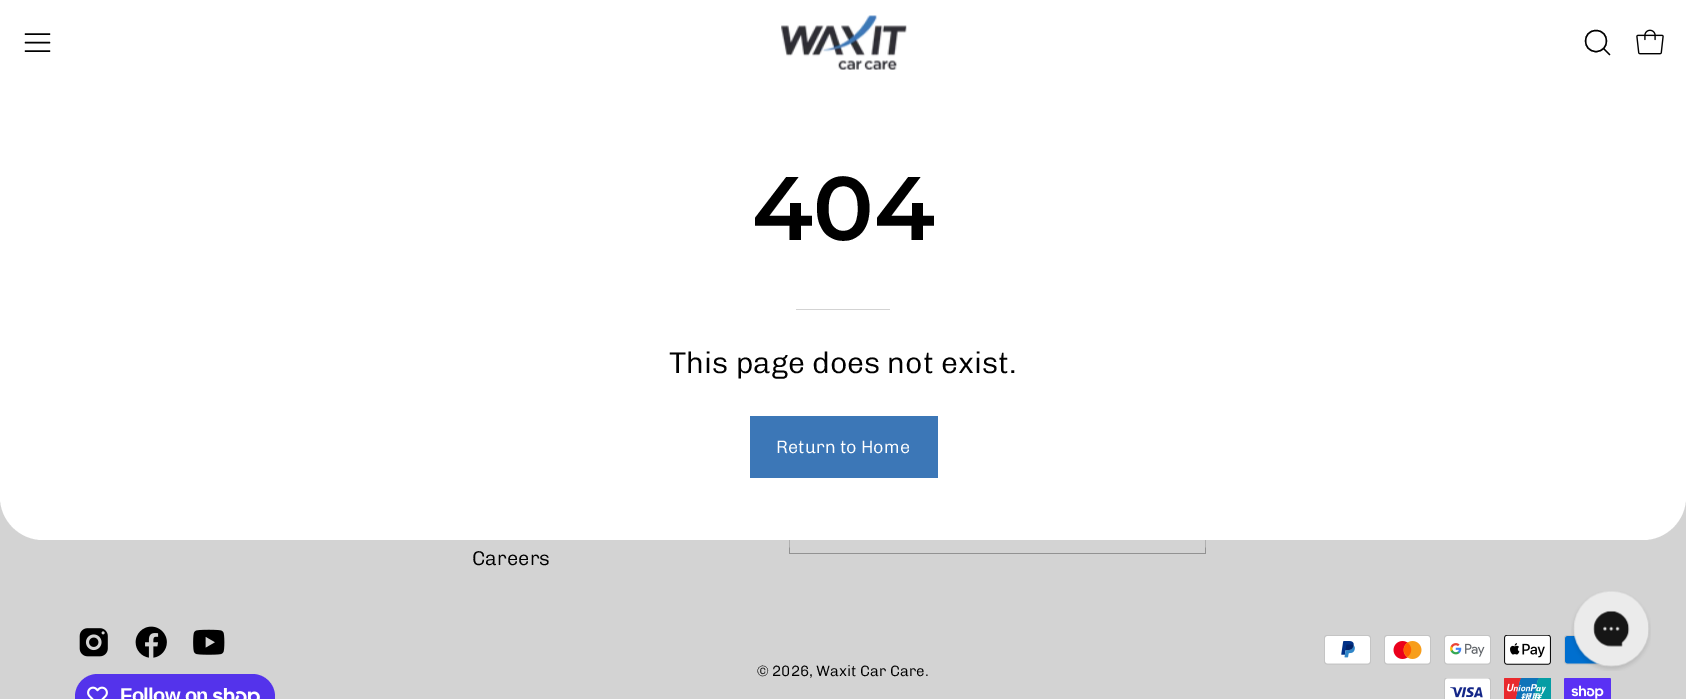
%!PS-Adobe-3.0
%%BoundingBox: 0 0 1686 699
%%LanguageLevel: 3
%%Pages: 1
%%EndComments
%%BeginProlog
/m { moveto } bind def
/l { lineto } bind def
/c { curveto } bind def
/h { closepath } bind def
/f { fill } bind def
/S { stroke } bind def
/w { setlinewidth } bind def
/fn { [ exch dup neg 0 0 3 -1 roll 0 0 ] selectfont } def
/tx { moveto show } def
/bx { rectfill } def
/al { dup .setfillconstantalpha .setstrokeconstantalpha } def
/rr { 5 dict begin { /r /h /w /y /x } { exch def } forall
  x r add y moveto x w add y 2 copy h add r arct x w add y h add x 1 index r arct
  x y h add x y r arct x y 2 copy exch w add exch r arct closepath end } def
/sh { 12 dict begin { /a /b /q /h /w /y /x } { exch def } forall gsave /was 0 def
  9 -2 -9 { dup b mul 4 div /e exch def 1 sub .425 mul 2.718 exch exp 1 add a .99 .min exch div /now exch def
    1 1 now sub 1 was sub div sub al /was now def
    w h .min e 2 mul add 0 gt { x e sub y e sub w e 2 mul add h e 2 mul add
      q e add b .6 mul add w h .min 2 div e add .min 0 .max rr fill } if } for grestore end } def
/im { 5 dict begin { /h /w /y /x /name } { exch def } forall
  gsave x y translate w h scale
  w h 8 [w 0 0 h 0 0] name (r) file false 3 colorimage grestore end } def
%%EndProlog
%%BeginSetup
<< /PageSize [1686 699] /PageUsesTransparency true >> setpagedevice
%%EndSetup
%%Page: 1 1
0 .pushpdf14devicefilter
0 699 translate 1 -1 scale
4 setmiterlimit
1 setgray
0 0 1686 699 bx
0 setgray
1.5 w
1 setlinecap
1 setlinejoin
25.5 42.5 m 49.5 42.5 l 25.5 34 m 49.5 34 l 25.5 51 m 49.5 51 l S
(image0.raw) 781 15 126 55 im
1.4 w
1596 51.5 m 1610 51.5 1610 30.5 1596 30.5 c 1582 30.5 1582 51.5 1596 51.5 c h 1603.5 48.5 m 1609.5 54.5 l S
(image1.raw) 1636 29 28 26 im
0.827 setgray
0 497 1686 202 bx
0 setgray
789 553 350 1 bx
789 540 1 14 bx
1205 540 1 14 bx
1139 553 67 1 bx
0.827 setgray
13 133 1661 426 30 15.5 1 sh
1 setgray
0 89 m 1686 89 l 1686 497 l 1686 520.5 1666.5 540 1643 540 c 43 540 l 19.5 540 0 520.5 0 497 c h f
/Montserrat-SemiBold 90 fn
0 setgray
(404) 752 240 tx
0.827 setgray
796 309 94 1 bx
/Chivo-Light 30 fn
0 setgray
(This page does not exist.) 669 373 tx
0.235 0.467 0.718 setrgbcolor
750 416 188 62 bx
/Chivo-Light 18 fn
1 setgray
(Return to Home) 776 453 tx
/Chivo-Light 20 fn
0 setgray
(Careers) 472 565 tx
/Chivo-Light 15 fn
(© 2026, Waxit Car Care.) 757 676 tx
(image2.raw) 1324 635 47 30 im
(image3.raw) 1384 635 47 30 im
(image4.raw) 1444 635 47 30 im
(image5.raw) 1504 635 47 30 im
(image6.raw) 1564 635 40 30 im
(image7.raw) 1444 678 47 21 im
(image8.raw) 1504 678 47 21 im
(image9.raw) 1564 678 47 21 im
(image10.raw) 79 628 29 29 im
(image11.raw) 135 626 32 32 im
(image12.raw) 193 629 32 26 im
0.329 0.2 0.922 setrgbcolor
75 674 200 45 22.5 rr f
(image13.raw) 87 686 21 13 im
/LiberationSans-Bold 20 fn
1 setgray
120 702 m -0.6 0 (Follow on) ashow
(image14.raw) 213 688 47 11 im
(image15.raw) 1571 591 80 80 im
.poppdf14devicefilter showpage
%%EOF
